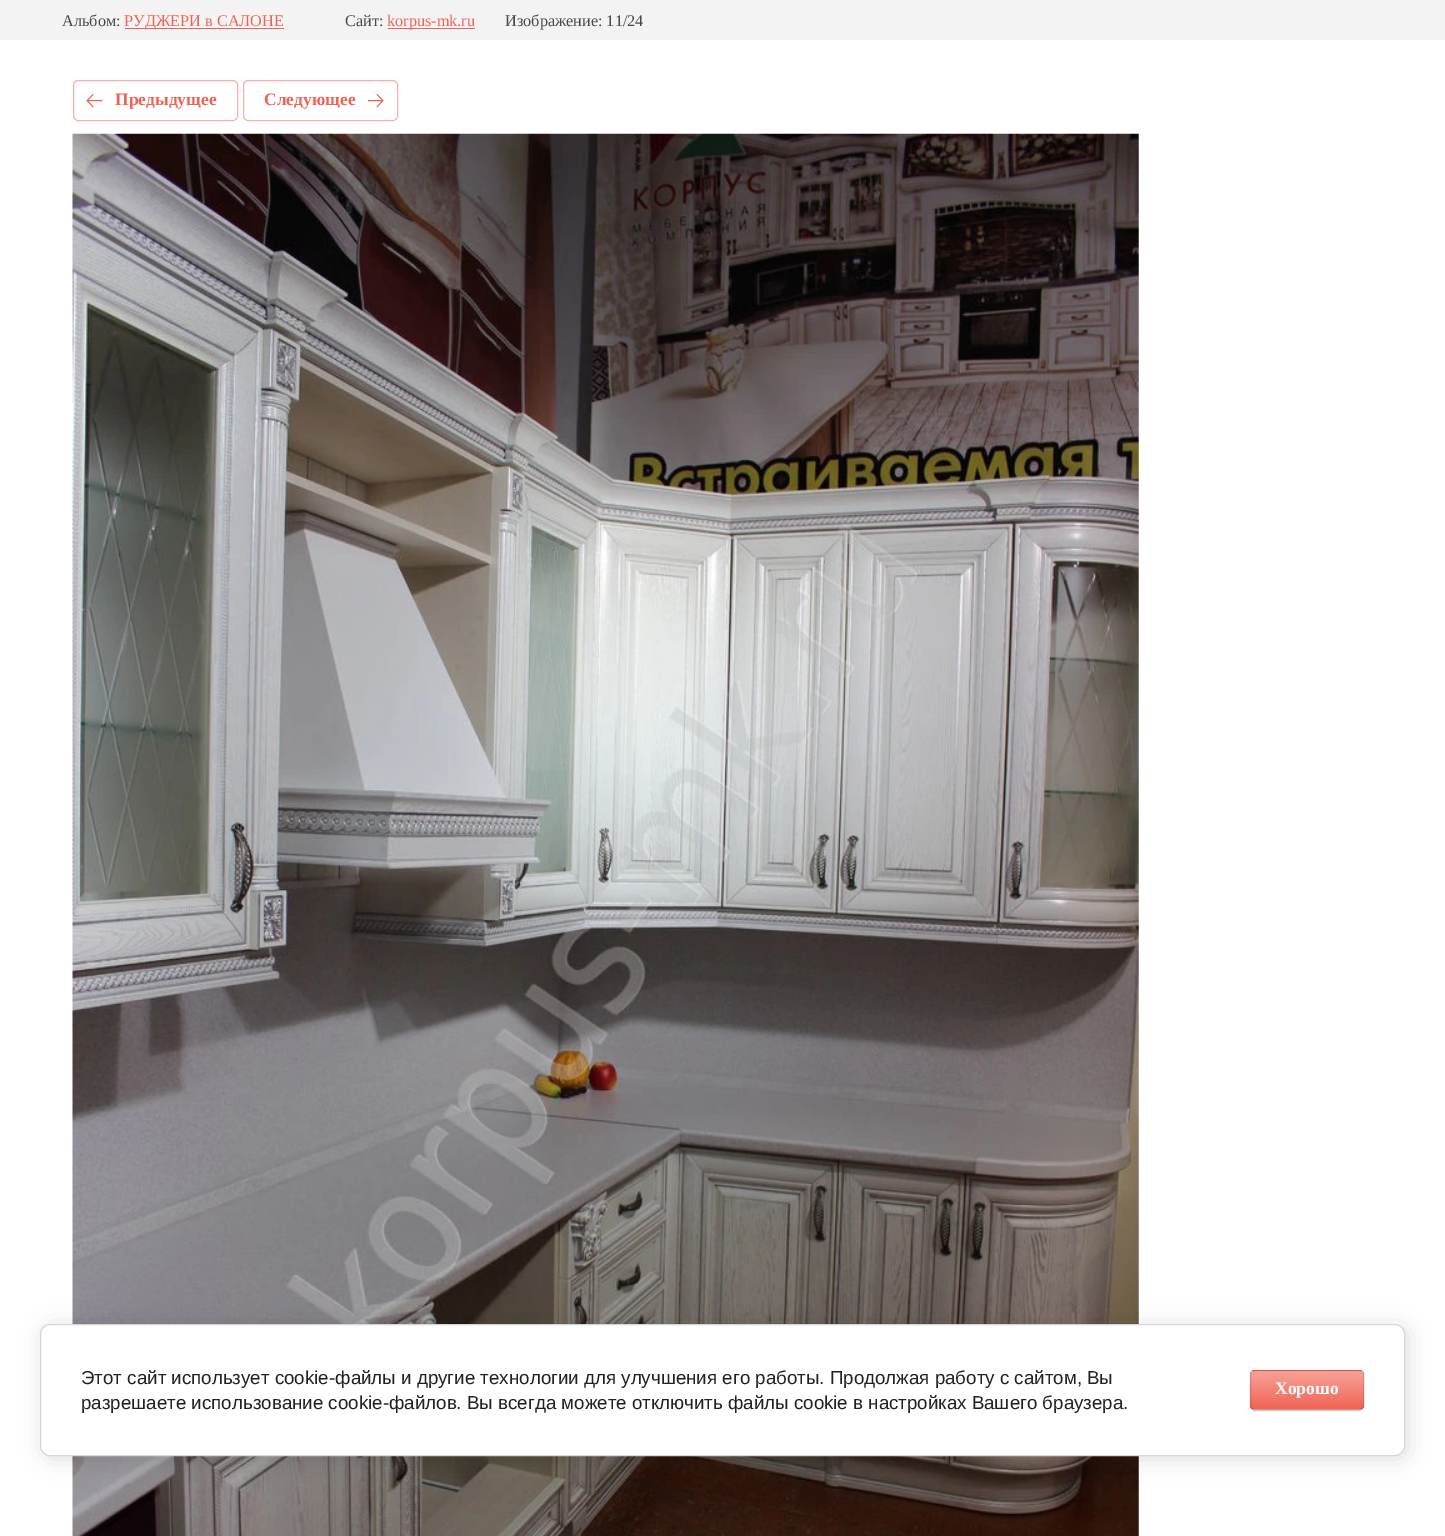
%!PS-Adobe-3.0
%%BoundingBox: 0 0 1445 1536
%%LanguageLevel: 3
%%Pages: 1
%%EndComments
%%BeginProlog
/m { moveto } bind def
/l { lineto } bind def
/h { closepath } bind def
/f { fill } bind def
/S { stroke } bind def
/q { gsave } bind def
/Q { grestore } bind def
/fn { [ exch dup neg 0 0 3 -1 roll 0 0 ] selectfont } def
/tx { moveto show } def
/bx { rectfill } def
/al { dup .setfillconstantalpha .setstrokeconstantalpha } def
/rr { 5 dict begin { /r /h /w /y /x } { exch def } forall
  x r add y moveto x w add y 2 copy h add r arct x w add y h add x 1 index r arct
  x y h add x y r arct x y 2 copy exch w add exch r arct closepath end } def
/sh { 12 dict begin { /a /b /q /h /w /y /x } { exch def } forall gsave /was 0 def
  9 -2 -9 { dup b mul 4 div /e exch def 1 sub .425 mul 2.718 exch exp 1 add a .99 .min exch div /now exch def
    1 1 now sub 1 was sub div sub al /was now def
    w h .min e 2 mul add 0 gt { x e sub y e sub w e 2 mul add h e 2 mul add
      q e add b .6 mul add w h .min 2 div e add .min 0 .max rr fill } if } for grestore end } def
/im { 5 dict begin { /h /w /y /x /name } { exch def } forall
  gsave x y translate w h scale
  w h 8 [w 0 0 h 0 0] name (r) file false 3 colorimage grestore end } def
%%EndProlog
%%BeginSetup
<< /PageSize [1445 1536] /PageUsesTransparency true >> setpagedevice
%%EndSetup
%%Page: 1 1
0 .pushpdf14devicefilter
0 1536 translate 1 -1 scale
4 setmiterlimit
1 setgray
0 0 1445 1536 bx
0.953 setgray
0 0 1445 40 bx
/LiberationSerif-Regular 16.25 fn
0.282 setgray
(Альбом:) 62 26 tx
0.941 0.388 0.329 setrgbcolor
125 28 159 1 bx
(РУДЖЕРИ в САЛОНЕ) 124 26 tx
0.282 setgray
(Сайт:) 345 26 tx
0.941 0.388 0.329 setrgbcolor
388 28 87 1 bx
(korpus-mk.ru) 387 26 tx
0.282 setgray
(Изображение: 11/24) 505 26 tx
0.973 0.694 0.667 setrgbcolor
73.5 80.5 164 40 4.5 rr S
(image0.raw) 86 94 17 14 im
/LiberationSerif-Bold 17.5 fn
0.941 0.388 0.329 setrgbcolor
(Предыдущее) 115 105 tx
0.973 0.694 0.667 setrgbcolor
243.5 80.5 154 40 4.5 rr S
0.941 0.388 0.329 setrgbcolor
(Следующее) 264 105 tx
(image1.raw) 368 94 16 14 im
(image2.raw) 72 133 1067 1403 im
0 setgray
43 1326 1365 133 10 11 0.14 sh
1 setgray
40.5 1324.5 1364 131 9.5 rr q f Q
0.839 setgray
S
/LiberationSans-Regular 18.75 fn
0.129 setgray
(Этот сайт использует cookie-файлы и другие технологии для улучшения его работы. Продолжая работу с сайтом, Вы) 81 1384 tx
(разрешаете использование cookie-файлов. Вы всегда можете отключить файлы cookie в настройках Вашего браузера.) 81 1409 tx
0 setgray
1250 1371 114 40 5 0.5 0.2 sh
q
1250 1370 114 40 5 rr clip newpath
q 1250 1370 m 1364 1370 l 1364 1371 l 1250 1371 l h clip newpath
<< /ShadingType 2 /ColorSpace /DeviceRGB /Coords [1307 1334 1307 1371] /Extend [true true] /Function << /FunctionType 2 /Domain [0 1] /C0 [0.965 0.639 0.604] /C1 [0.941 0.388 0.329] /N 1 >> >> shfill Q
q 1250 1371 m 1364 1371 l 1364 1409 l 1250 1409 l h clip newpath
<< /ShadingType 2 /ColorSpace /DeviceRGB /Coords [1307 1371 1307 1409] /Extend [true true] /Function << /FunctionType 2 /Domain [0 1] /C0 [0.965 0.639 0.604] /C1 [0.941 0.388 0.329] /N 1 >> >> shfill Q
q 1250 1409 m 1364 1409 l 1364 1410 l 1250 1410 l h clip newpath
<< /ShadingType 2 /ColorSpace /DeviceRGB /Coords [1307 1409 1307 1446] /Extend [true true] /Function << /FunctionType 2 /Domain [0 1] /C0 [0.965 0.639 0.604] /C1 [0.941 0.388 0.329] /N 1 >> >> shfill Q
Q
0.1 al
1250.5 1370.5 113 39 4.5 rr S
/LiberationSerif-Bold 17.5 fn
1 al
1 setgray
(Хорошо) 1275 1394 tx
.poppdf14devicefilter showpage
%%EOF
